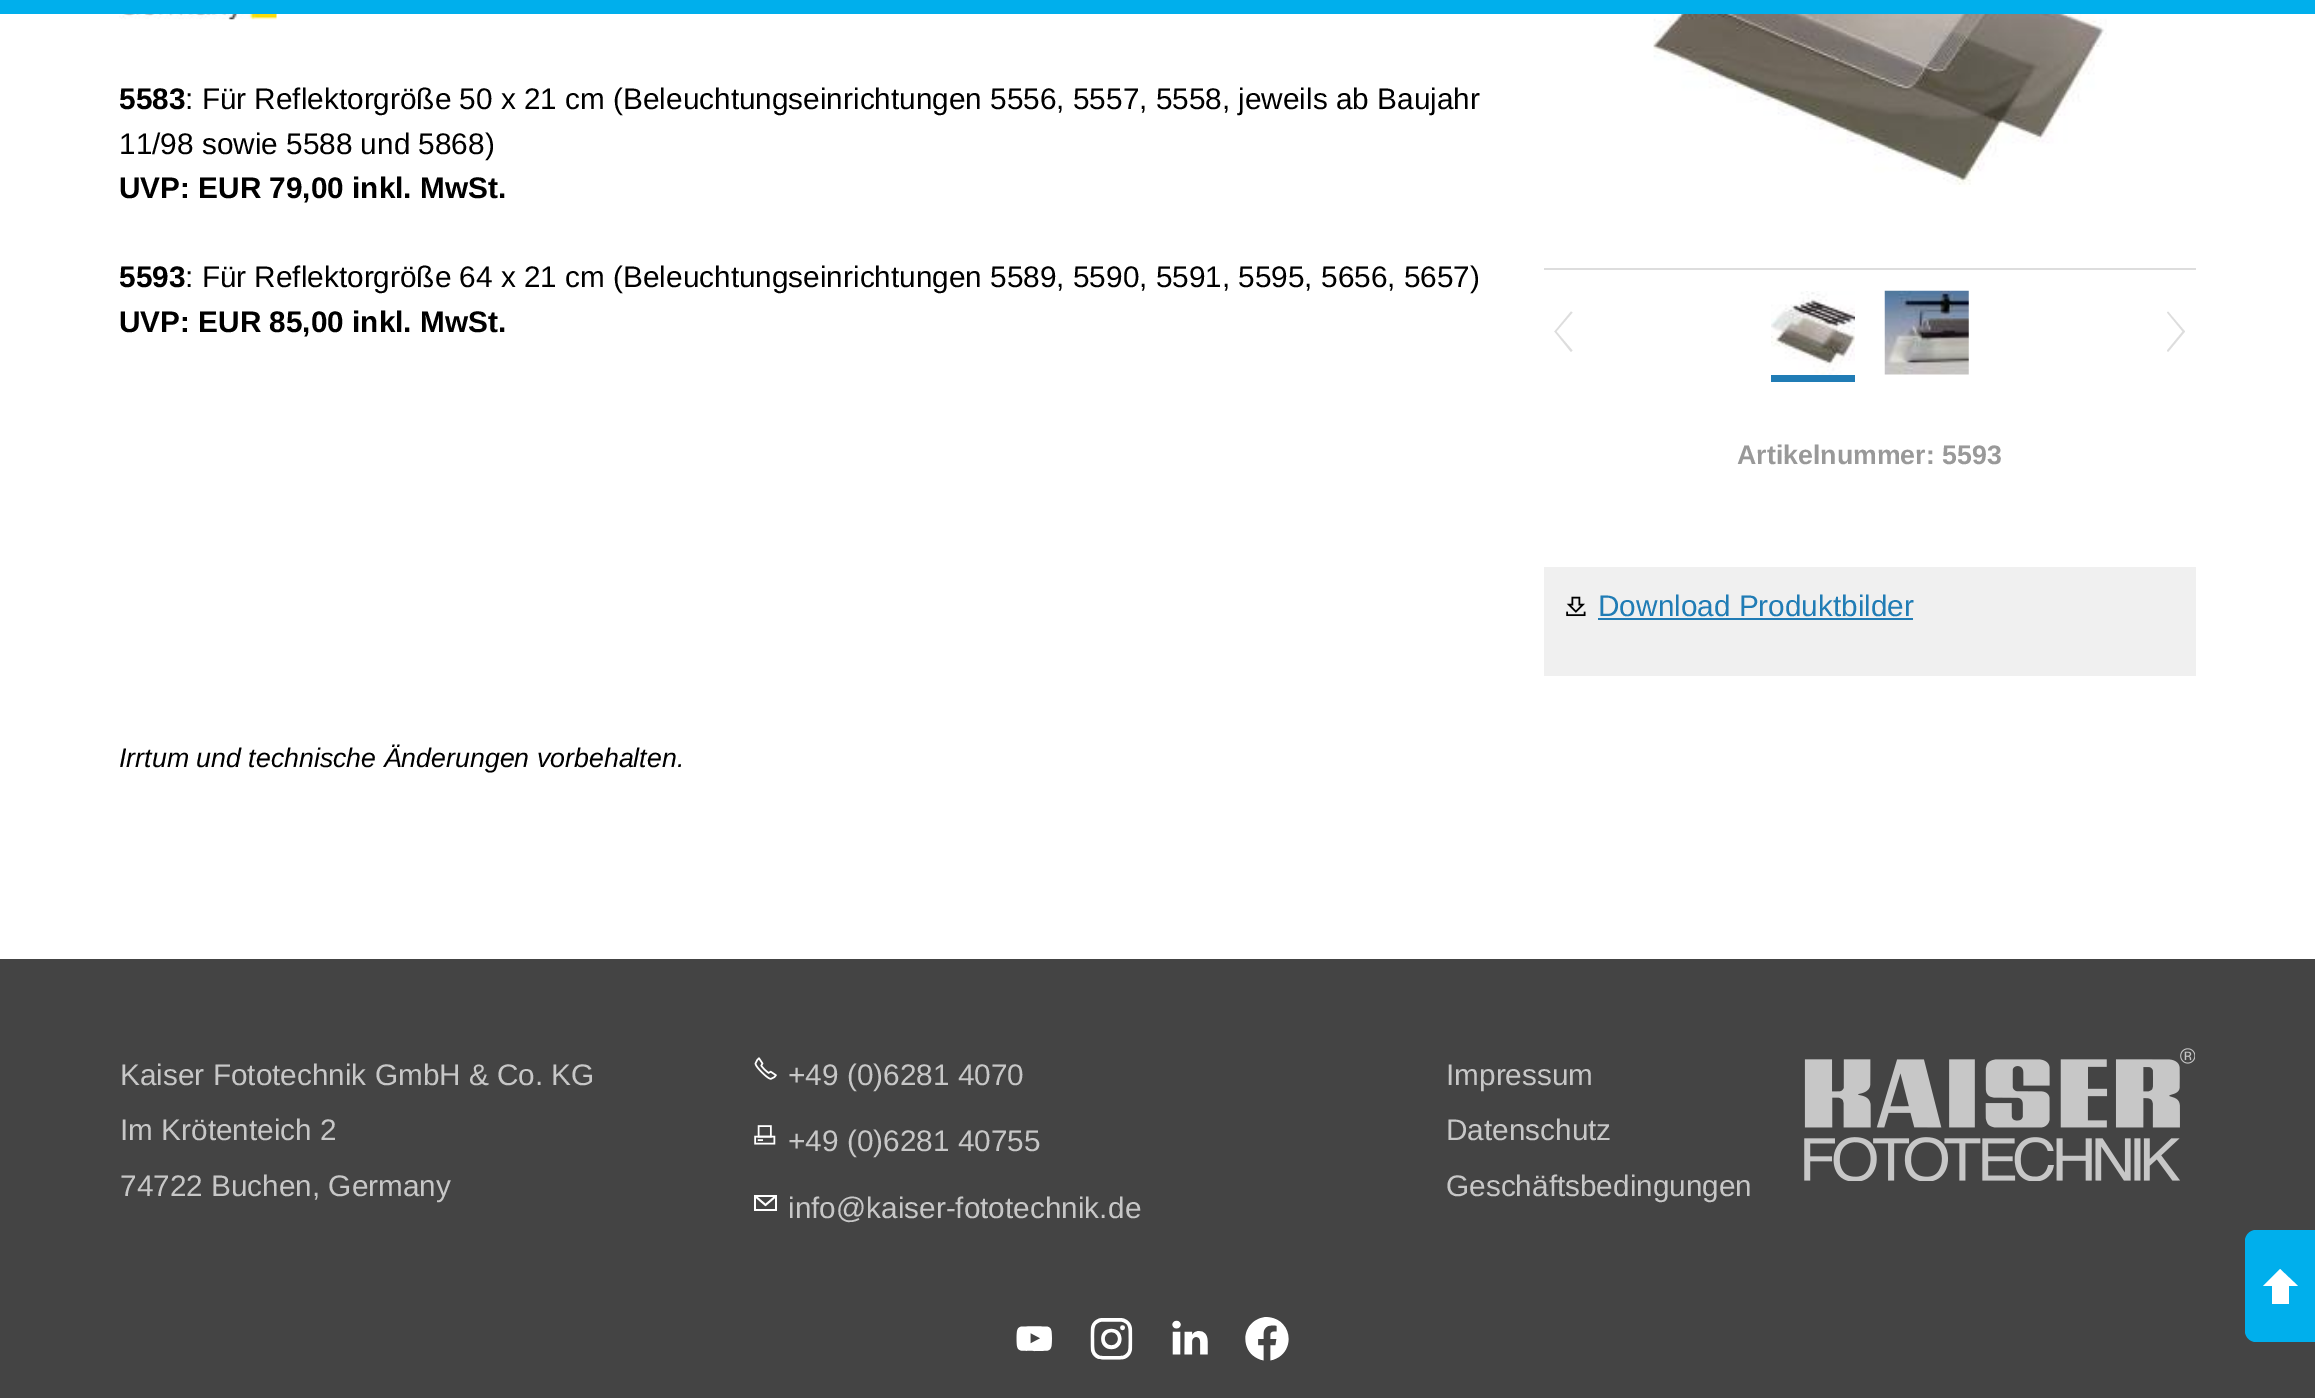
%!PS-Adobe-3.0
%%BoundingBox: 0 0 2315 1398
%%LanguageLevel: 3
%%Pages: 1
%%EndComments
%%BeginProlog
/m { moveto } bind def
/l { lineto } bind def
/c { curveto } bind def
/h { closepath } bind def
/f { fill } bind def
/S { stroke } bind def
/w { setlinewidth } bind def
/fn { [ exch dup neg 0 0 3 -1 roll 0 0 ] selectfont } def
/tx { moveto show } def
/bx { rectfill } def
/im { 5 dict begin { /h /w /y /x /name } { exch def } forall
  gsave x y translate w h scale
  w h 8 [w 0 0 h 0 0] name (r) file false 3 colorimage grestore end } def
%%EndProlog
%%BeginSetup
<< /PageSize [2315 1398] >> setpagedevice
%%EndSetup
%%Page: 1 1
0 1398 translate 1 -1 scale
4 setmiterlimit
1 setgray
0 0 2315 1398 bx
0 0.686 0.925 setrgbcolor
0 0 2315 14 bx
(image0.raw) 119 14 158 6 im
/LiberationSans-Bold 29.75 fn
0 setgray
(5583) 119 109 tx
/LiberationSans-Regular 29.75 fn
(: Für Reflektorgröße 50 x 21 cm \(Beleuchtungseinrichtungen 5556, 5557, 5558, jeweils ab Baujahr) 185 109 tx
(11/98 sowie 5588 und 5868\)) 119 154 tx
/LiberationSans-Bold 29.75 fn
(UVP: EUR 79,00 inkl. MwSt.) 119 198 tx
(5593) 119 287 tx
/LiberationSans-Regular 29.75 fn
(: Für Reflektorgröße 64 x 21 cm \(Beleuchtungseinrichtungen 5589, 5590, 5591, 5595, 5656, 5657\)) 185 287 tx
/LiberationSans-Bold 29.75 fn
(UVP: EUR 85,00 inkl. MwSt.) 119 332 tx
(image1.raw) 1653 14 454 173 im
0.867 setgray
1544 268 652 2 bx
0.125 0.486 0.71 setrgbcolor
1771 375 84 7 bx
(image2.raw) 1771 291 84 84 im
(image3.raw) 1884 290 85 85 im
0.867 setgray
1554.5 331.5 m 1571 311.5 l 1572.5 312.5 l 1555.5 332.5 l h f
1555.5 330.5 m 1572.5 350.5 l 1571 352 l 1554.5 331.5 l h f
2168 311.5 m 2185 331.5 l 2183.5 332.5 l 2167 312.5 l h f
2167 350.5 m 2183.5 330.5 l 2185 331.5 l 2168 352 l h f
/LiberationSans-Bold 26.75 fn
0.6 setgray
(Artikelnummer: 5593) 1737 464 tx
0.941 setgray
1544 567 652 109 bx
(image4.raw) 1566 596 20 21 im
/LiberationSans-Regular 29.75 fn
0.125 0.486 0.71 setrgbcolor
(Download Produktbilder) 1598 616 tx
1598 618 315 2 bx
/LiberationSans-Italic 26.75 fn
0 setgray
(Irrtum und technische Änderungen vorbehalten.) 119 767 tx
0.267 setgray
0 959 2315 439 bx
/LiberationSans-Regular 29.75 fn
0.78 setgray
(Kaiser Fototechnik GmbH & Co. KG) 120 1085 tx
(Im Krötenteich 2) 120 1140 tx
(74722 Buchen, Germany) 120 1196 tx
(image5.raw) 754 1057 23 23 im
(+49 \(0\)6281 4070) 788 1085 tx
(image6.raw) 754 1125 22 20 im
(+49 \(0\)6281 40755) 788 1151 tx
1 setgray
1.8 w
755 1196 m 776 1196 l 776 1210 l 755 1210 l h 755 1196 m 765.5 1205 l 776 1196 l S
0.78 setgray
(info@kaiser-fototechnik.d) 788 1218 tx
(e) 1125 1218 tx
(Impressum) 1446 1085 tx
(Datenschutz) 1446 1140 tx
(Geschäftsbedingungen) 1446 1196 tx
(image7.raw) 1804 1048 391 133 im
(image8.raw) 1016 1326 36 26 im
(image9.raw) 1090 1318 43 42 im
(image10.raw) 1172 1320 36 35 im
(image11.raw) 1245 1317 44 44 im
0 0.686 0.925 setrgbcolor
2256 1230 m 2315 1230 l 2315 1342 l 2256 1342 l 2250 1342 2245 1337 2245 1331 c 2245 1241 l 2245 1235 2250 1230 2256 1230 c h f
1 setgray
2298 1286 m 2263 1286 l 2280 1269 l h f
2272 1286 17 18 bx
showpage
%%EOF
